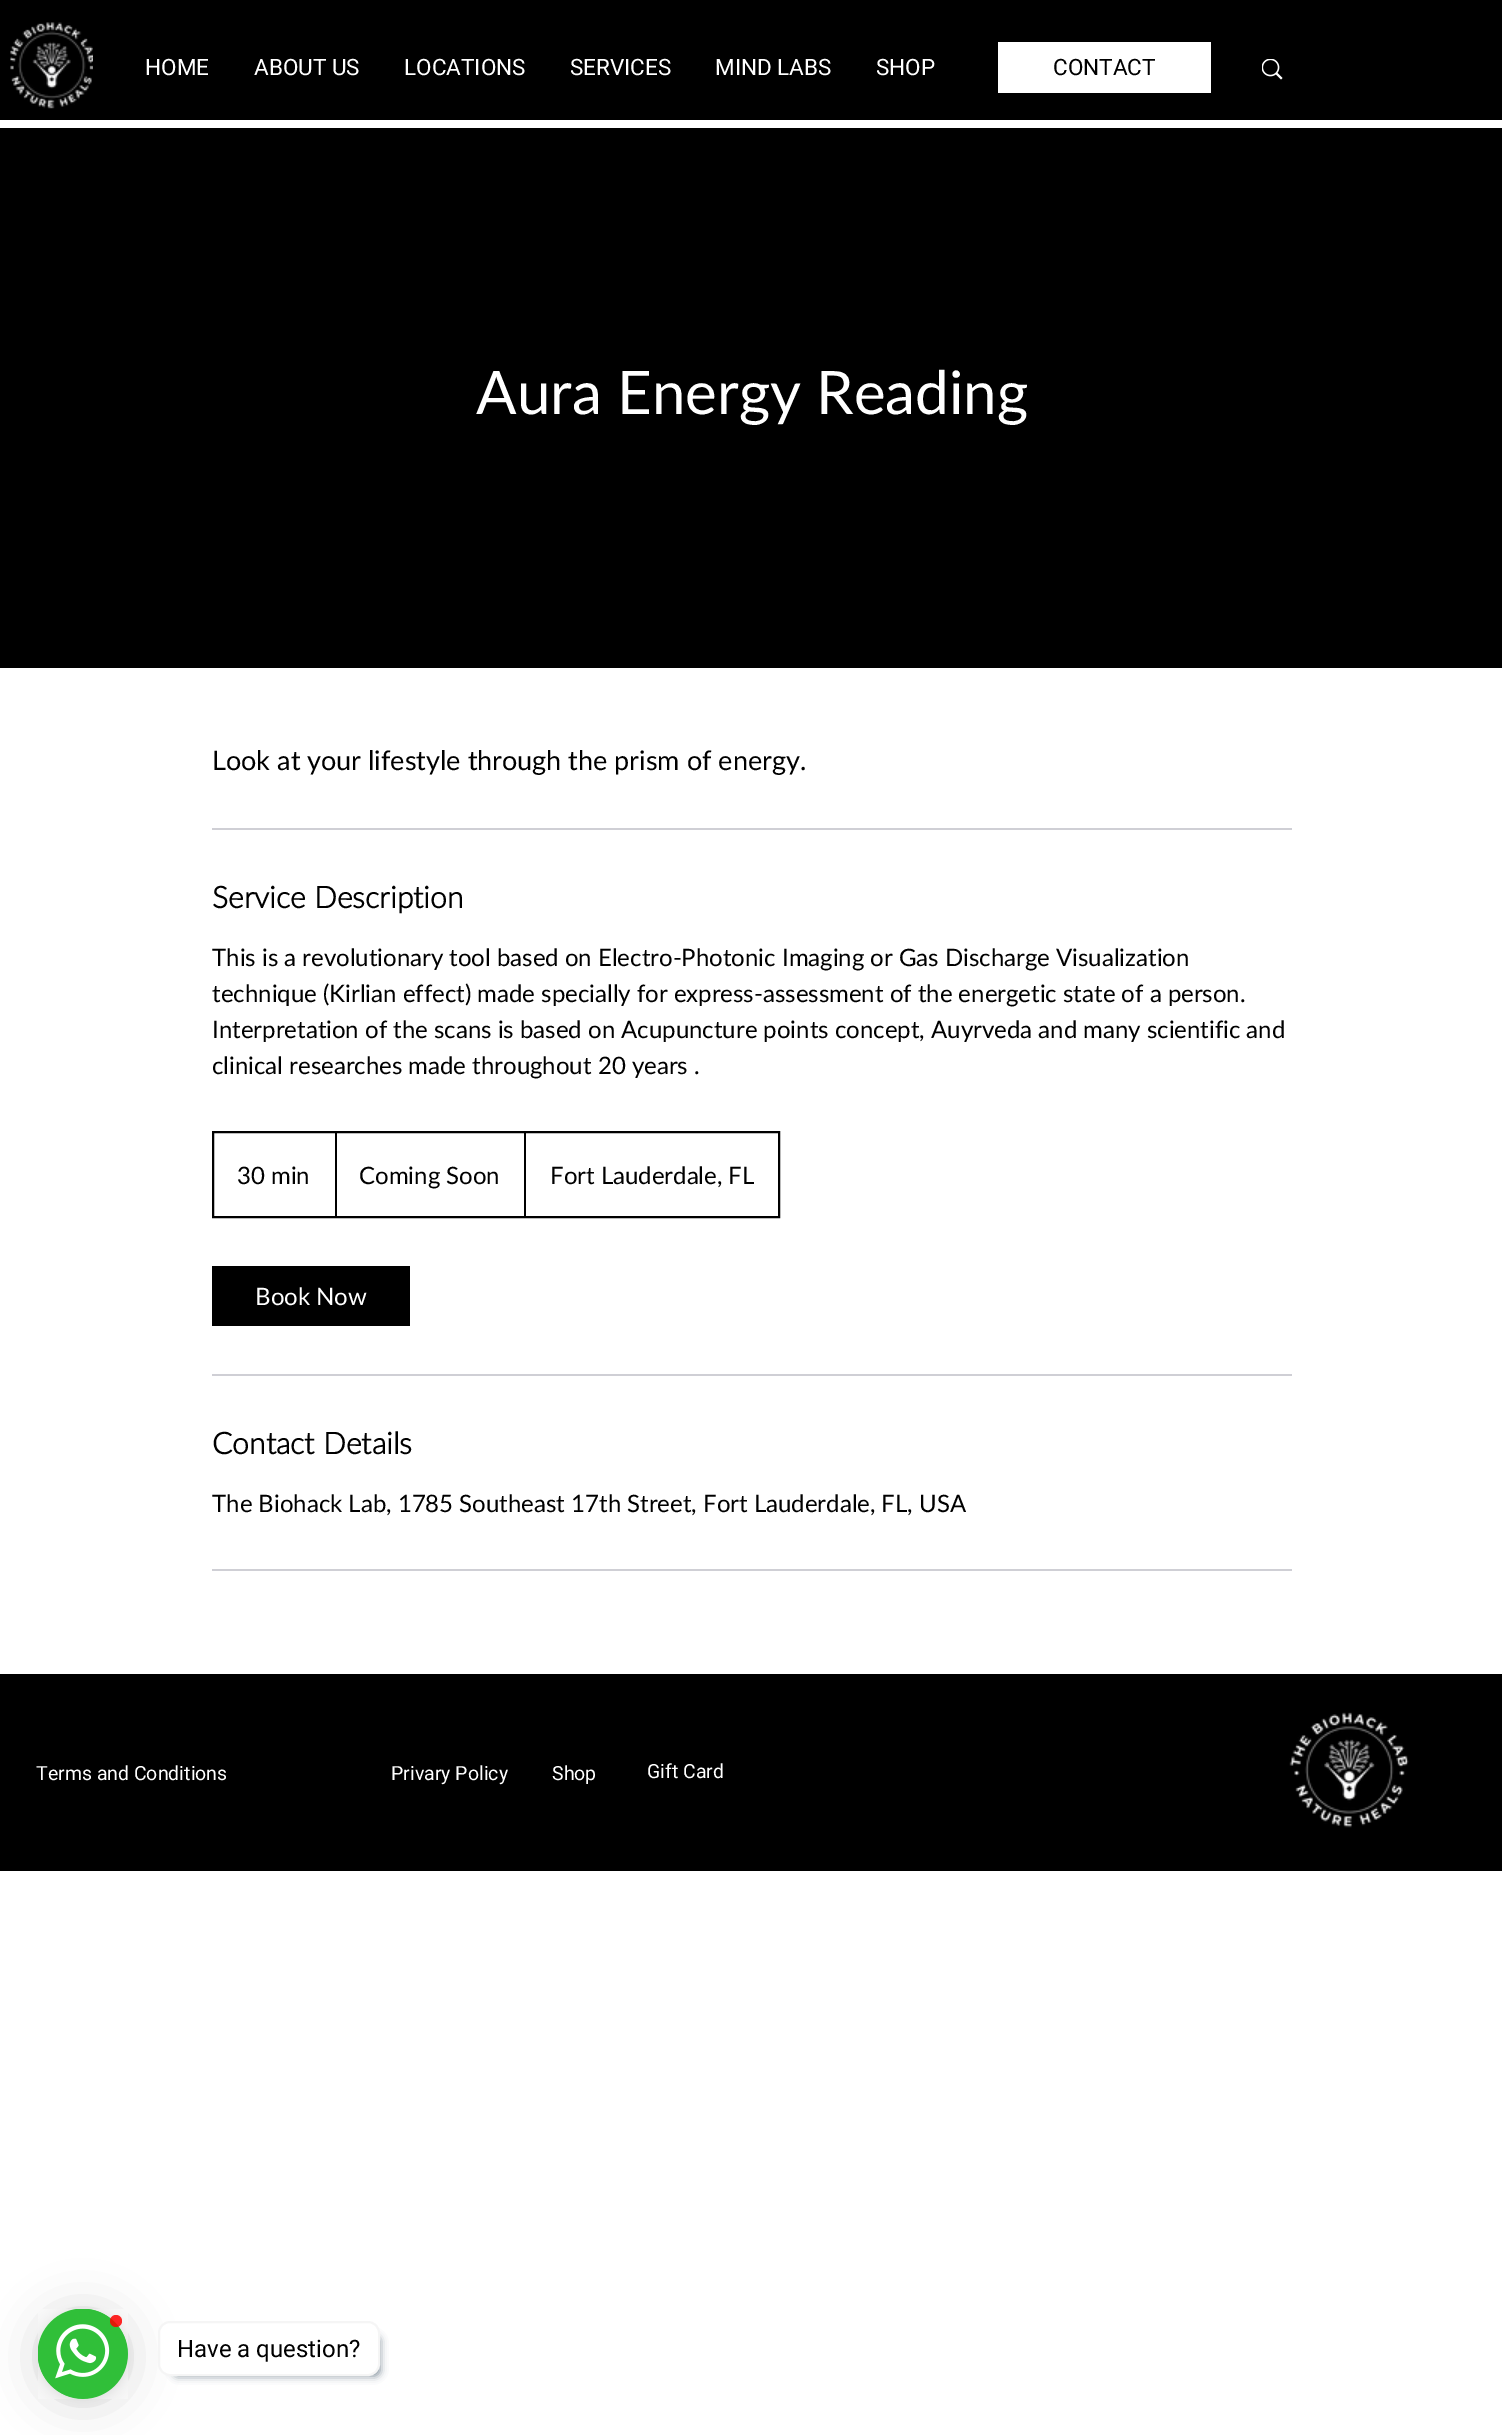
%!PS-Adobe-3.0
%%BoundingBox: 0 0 1502 2435
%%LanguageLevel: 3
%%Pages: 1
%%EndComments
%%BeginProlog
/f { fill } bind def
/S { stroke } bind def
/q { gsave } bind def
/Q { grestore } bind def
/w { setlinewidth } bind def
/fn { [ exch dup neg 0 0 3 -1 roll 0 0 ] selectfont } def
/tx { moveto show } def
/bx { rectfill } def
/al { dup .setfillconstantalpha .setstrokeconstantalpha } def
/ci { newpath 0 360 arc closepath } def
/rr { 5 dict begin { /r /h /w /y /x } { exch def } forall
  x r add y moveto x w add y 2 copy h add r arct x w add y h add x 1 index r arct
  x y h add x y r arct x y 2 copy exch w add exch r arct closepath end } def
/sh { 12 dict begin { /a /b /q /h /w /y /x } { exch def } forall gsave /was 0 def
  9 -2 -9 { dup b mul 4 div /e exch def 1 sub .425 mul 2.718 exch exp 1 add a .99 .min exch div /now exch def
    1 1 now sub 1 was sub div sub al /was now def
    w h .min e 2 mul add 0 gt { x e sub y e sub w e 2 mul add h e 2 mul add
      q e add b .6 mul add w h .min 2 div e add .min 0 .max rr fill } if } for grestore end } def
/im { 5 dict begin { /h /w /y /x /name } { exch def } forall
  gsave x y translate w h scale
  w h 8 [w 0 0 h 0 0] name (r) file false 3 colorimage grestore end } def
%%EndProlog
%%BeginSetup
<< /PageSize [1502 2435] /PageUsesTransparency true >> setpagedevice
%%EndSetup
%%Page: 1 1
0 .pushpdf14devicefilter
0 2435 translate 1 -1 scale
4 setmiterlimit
1 setgray
0 0 1502 2435 bx
0 setgray
0 0 1502 120 bx
(image0.raw) 10 22 83 87 im
/Heebo-Regular 22.5 fn
1 setgray
(HOME) 145 75 tx
(ABOUT US) 254 75 tx
(LOCATIONS) 404 75 tx
(SERVICES) 570 75 tx
(MIND LABS) 715 75 tx
(SHOP) 876 75 tx
998 42 213 51 bx
0 setgray
(CONTACT) 1053 75 tx
(image1.raw) 1262 59 21 21 im
0 128 1502 540 bx
/Lato-Regular 60 fn
1 setgray
(Aura Energy Reading) 476 414 tx
/Lato-Regular 27 fn
0 setgray
(Look at your lifestyle through the prism of energy.) 212 770 tx
0.812 0.812 0.835 setrgbcolor
212 828 1080 2 bx
/Lato-Bold 30 fn
0 setgray
(Service Description) 212 908 tx
/Lato-Regular 24 fn
(This is a revolutionary tool based on Electro-Photonic Imaging or Gas Discharge Visualization) 212 966 tx
(technique \(Kirlian effect\) made specially for express-assessment of the energetic state of a person.) 212 1002 tx
(Interpretation of the scans is based on Acupuncture points concept, Auyrveda and many scientific and) 212 1038 tx
(clinical researches made throughout 20 years .) 212 1074 tx
2 w
213 1132 566 85 rectstroke
(30 min) 237 1184 tx
335 1133 2 84 bx
(Coming Soon) 359 1184 tx
524 1133 2 84 bx
(Fort Lauderdale, FL) 550 1184 tx
212 1266 198 60 bx
1 setgray
(Book Now) 255 1305 tx
0.812 0.812 0.835 setrgbcolor
212 1374 1080 2 bx
/Lato-Bold 30 fn
0 setgray
(Contact Details) 212 1454 tx
/Lato-Regular 24 fn
(The Biohack Lab, 1785 Southeast 17th Street, Fort Lauderdale, FL, USA) 212 1512 tx
0.812 0.812 0.835 setrgbcolor
212 1569 1080 2 bx
0 setgray
0 1674 1502 197 bx
/Heebo-Regular 19.5 fn
1 setgray
(Terms and Conditions) 36 1780 tx
(Privary Policy) 391 1780 tx
(Shop) 552 1780 tx
(Gift Card) 647 1778 tx
(image2.raw) 1289 1712 120 116 im
0 setgray
38 2312 90 90 45 24 0.16 sh
38 2310 90 90 45 4.5 0.06 sh
0.188 0.749 0.224 setrgbcolor
83 2354 45 ci f
(image3.raw) 38 2309 90 90 im
0.85 al
1 0 0 setrgbcolor
116 2321 6 ci f
1 al
0.133 0.235 0.314 setrgbcolor
173 2336 207 40 5 4 0.6 sh
1 setgray
159 2322 220 53 11 rr q f Q
0.961 setgray
S
/Roboto-Regular 24 fn
0 setgray
(Have a question?) 177 2357 tx
.poppdf14devicefilter showpage
%%EOF
